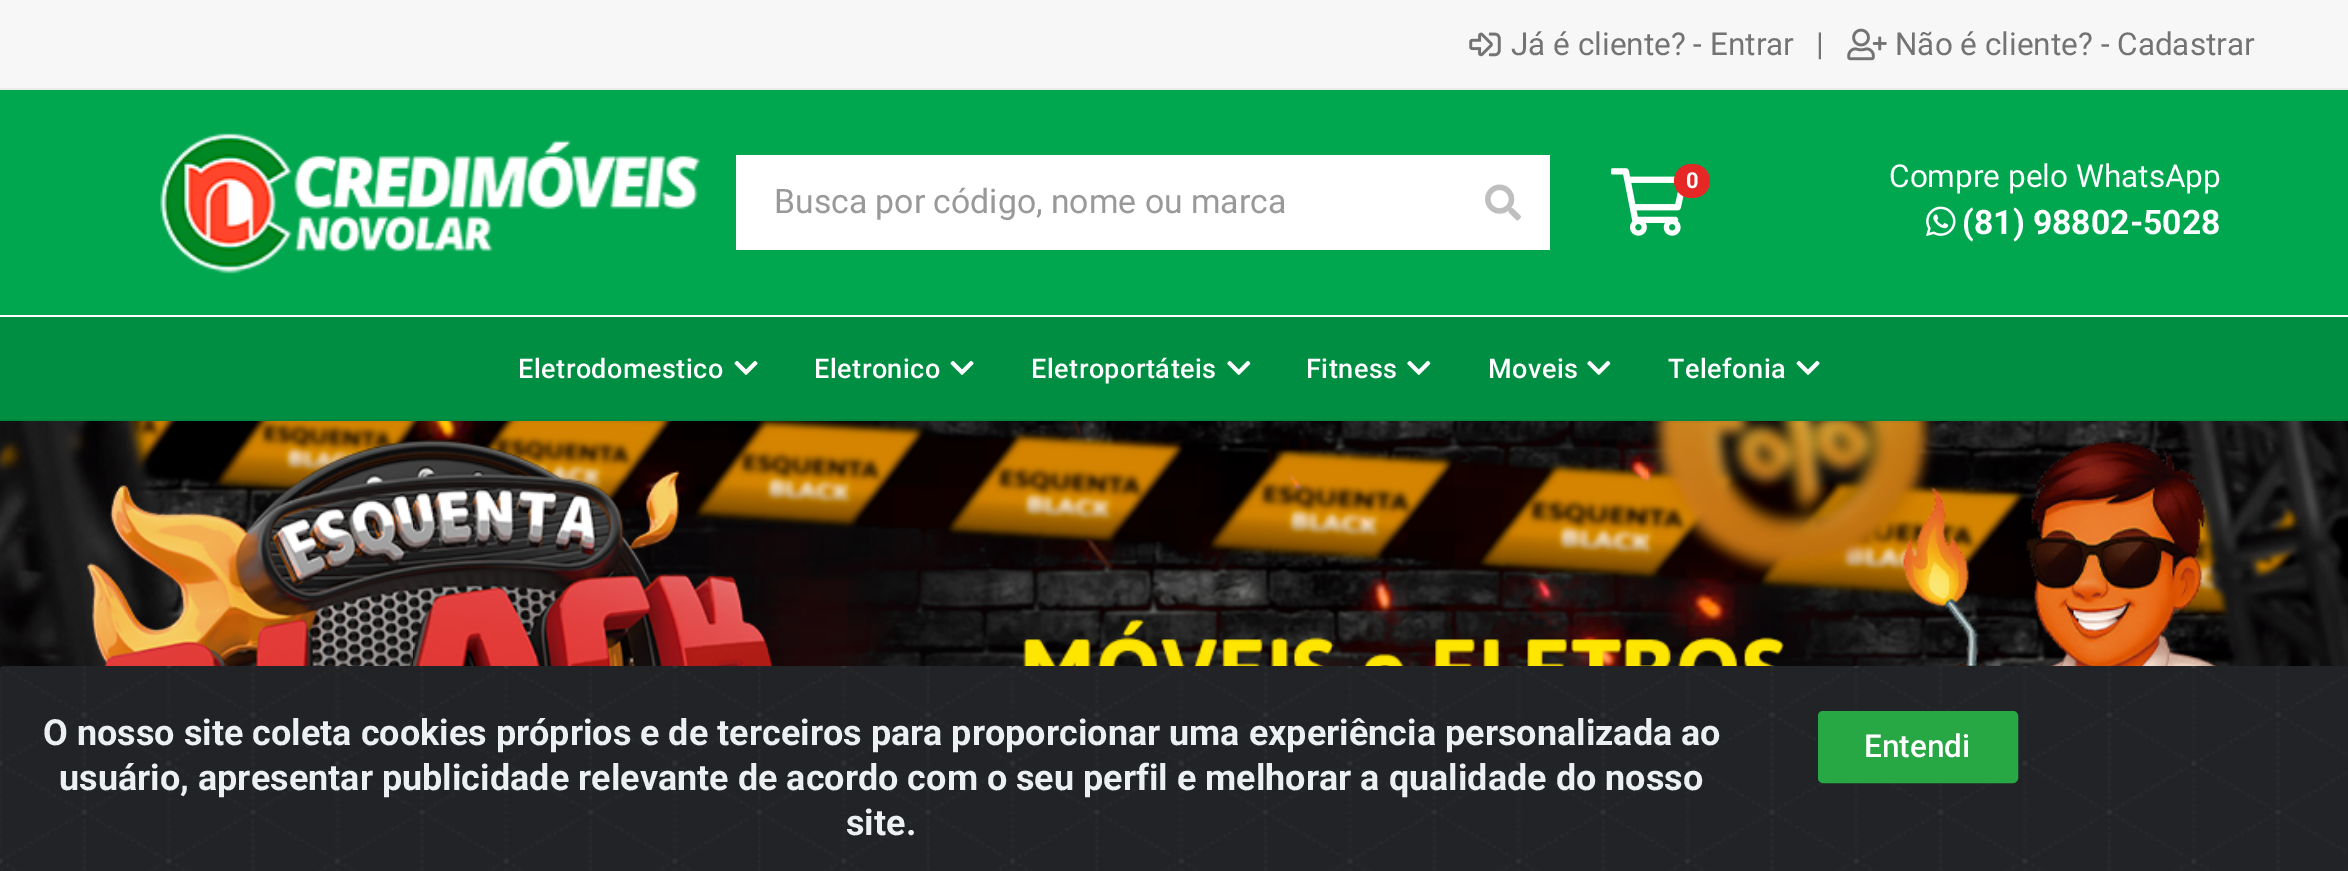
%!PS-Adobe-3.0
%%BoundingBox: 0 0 2348 871
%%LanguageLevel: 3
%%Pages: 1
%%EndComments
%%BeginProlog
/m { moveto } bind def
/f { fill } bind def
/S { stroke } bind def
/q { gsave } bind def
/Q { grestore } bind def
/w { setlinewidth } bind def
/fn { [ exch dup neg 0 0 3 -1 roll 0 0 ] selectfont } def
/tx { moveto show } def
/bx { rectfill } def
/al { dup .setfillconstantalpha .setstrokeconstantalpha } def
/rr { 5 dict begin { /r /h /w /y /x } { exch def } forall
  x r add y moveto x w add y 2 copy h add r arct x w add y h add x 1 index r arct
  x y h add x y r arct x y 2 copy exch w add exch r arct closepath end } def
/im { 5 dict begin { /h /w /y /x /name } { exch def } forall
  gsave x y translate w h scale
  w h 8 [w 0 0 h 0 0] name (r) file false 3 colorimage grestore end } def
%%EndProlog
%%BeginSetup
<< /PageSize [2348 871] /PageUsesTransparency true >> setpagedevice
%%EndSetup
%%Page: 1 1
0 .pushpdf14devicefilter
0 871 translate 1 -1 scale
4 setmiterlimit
1 setgray
0 0 2348 871 bx
0 0.655 0.31 setrgbcolor
0 90 2348 225 bx
0.969 setgray
0 0 2348 88 bx
0.922 setgray
0 88 2348 2 bx
(image0.raw) 1469 32 32 25 im
/Roboto-Regular 31.5 fn
0.451 setgray
(Já é cliente? - Entrar) 1511 55 tx
(|) 1816 55 tx
(image1.raw) 1847 28 40 33 im
(Não é cliente? - Cadastrar) 1895 55 tx
(image2.raw) 160 133 541 141 im
(image3.raw) 1611 168 73 68 im
0.898 0.153 0.149 setrgbcolor
1674 164 36 34 17 rr f
/Roboto-Bold 22 fn
1 setgray
(0) 1686 188 tx
/Roboto-Regular 31.5 fn
(Compre pelo WhatsApp) 1889 187 tx
(image4.raw) 1926 206 30 30 im
/Roboto-Bold 33.75 fn
(\(81\) 98802-5028) 1962 234 tx
736 155 814 95 bx
/Roboto-Regular 33.75 fn
0.6 setgray
(Busca por código, nome ou marca) 774 213 tx
(image5.raw) 1485 184 36 37 im
(image8.raw) 0 421 2348 450 im
0.04 al
0 setgray
134 421 1793 2 bx
1 al
0 0.557 0.263 setrgbcolor
0 317 2348 102 bx
0 0.533 0.251 setrgbcolor
0 419 2348 2 bx
/Roboto-Medium 27 fn
1 setgray
518 378 m 0.5 0 (Eletrodomestico) ashow
(image6.raw) 734 360 24 15 im
814 378 m 0.5 0 (Eletronico) ashow
(image6.raw) 950 360 24 15 im
1031 378 m 0.5 0 (Eletroportáteis) ashow
(image7.raw) 1227 360 24 15 im
1306 378 m 0.5 0 (Fitness) ashow
(image7.raw) 1407 360 24 15 im
1488 378 m 0.5 0 (Moveis) ashow
(image7.raw) 1587 360 24 15 im
1668 378 m 0.5 0 (Telefonia) ashow
(image6.raw) 1796 360 24 15 im
(image9.raw) 0 666 2348 205 im
/Roboto-Bold 36 fn
0.925 0.941 0.945 setrgbcolor
(O nosso site coleta cookies próprios e de terceiros para proporcionar uma experiência personalizada ao) 43 745 tx
(usuário, apresentar publicidade relevante de acordo com o seu perfil e melhorar a qualidade do nosso) 59 790 tx
(site.) 846 835 tx
0.157 0.655 0.271 setrgbcolor
1819 712 198 70 4 rr q f Q
2 w
S
/Roboto-Medium 31.5 fn
1 setgray
(Entendi) 1864 757 tx
.poppdf14devicefilter showpage
%%EOF
